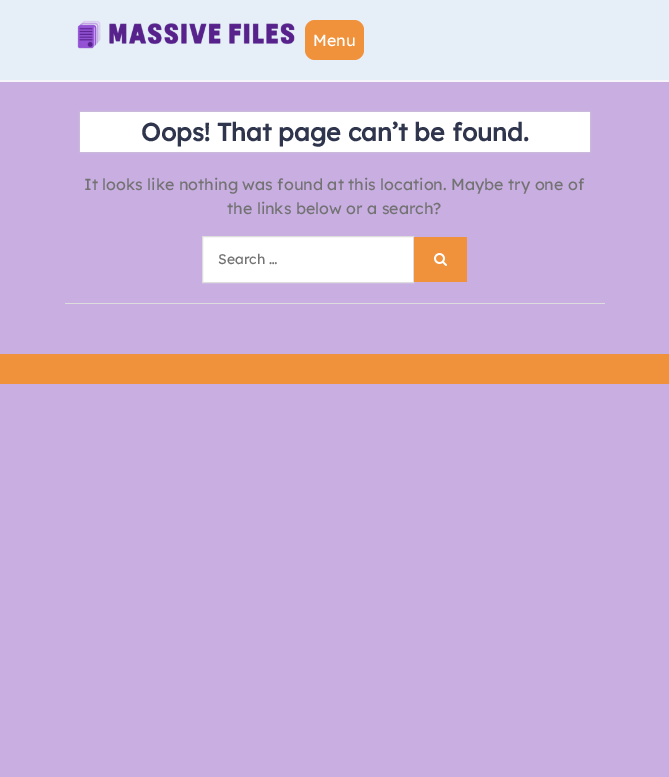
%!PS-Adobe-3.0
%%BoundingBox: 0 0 669 777
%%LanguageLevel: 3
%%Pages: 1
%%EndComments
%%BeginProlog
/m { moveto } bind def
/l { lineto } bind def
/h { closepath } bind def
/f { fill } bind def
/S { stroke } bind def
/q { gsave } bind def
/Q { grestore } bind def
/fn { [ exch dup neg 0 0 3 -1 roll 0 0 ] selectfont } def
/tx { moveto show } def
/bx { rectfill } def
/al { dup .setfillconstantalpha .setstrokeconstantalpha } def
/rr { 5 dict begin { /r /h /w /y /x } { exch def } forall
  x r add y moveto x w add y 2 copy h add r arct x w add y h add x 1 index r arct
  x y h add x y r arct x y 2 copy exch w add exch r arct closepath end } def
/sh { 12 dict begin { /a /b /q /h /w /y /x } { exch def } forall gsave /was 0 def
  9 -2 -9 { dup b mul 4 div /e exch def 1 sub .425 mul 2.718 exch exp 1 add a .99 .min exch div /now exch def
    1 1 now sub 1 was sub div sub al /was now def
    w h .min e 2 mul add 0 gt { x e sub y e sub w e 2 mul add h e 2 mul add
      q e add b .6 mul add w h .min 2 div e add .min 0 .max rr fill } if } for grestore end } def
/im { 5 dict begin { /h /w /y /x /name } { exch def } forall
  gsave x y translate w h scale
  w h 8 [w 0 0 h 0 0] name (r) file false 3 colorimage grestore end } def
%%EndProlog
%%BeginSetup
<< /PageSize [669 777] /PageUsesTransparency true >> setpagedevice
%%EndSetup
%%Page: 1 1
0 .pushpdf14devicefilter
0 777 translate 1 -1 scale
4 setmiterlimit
0.788 0.682 0.886 setrgbcolor
0 0 669 777 bx
0.902 0.933 0.973 setrgbcolor
0 0 669 80 bx
0.961 0.961 0.98 setrgbcolor
0 80 669 2 bx
(image0.raw) 77 20 218 29 im
0.941 0.573 0.235 setrgbcolor
305 20 59 40 10 rr f
/Lexend-Regular 16 fn
1 setgray
(Menu) 313 46 tx
0.867 setgray
65 303 540 1 bx
0.812 setgray
80 112 510 40 0 1 1 sh
1 setgray
80 112 510 40 bx
/Lexend-Bold 25 fn
0.184 0.208 0.302 setrgbcolor
(Oops! That page can’t be found.) 141 141 tx
/Lexend-Regular 16 fn
0.447 setgray
(It looks like nothing was found at this location. Maybe try one of) 84 190 tx
(the links below or a search?) 227 214 tx
1 setgray
202.5 236.5 m 413.5 236.5 l 413.5 282.5 l 202.5 282.5 l h q f Q
0.867 setgray
S
/Lexend-Regular 14 fn
0.447 setgray
(Search …) 218 264 tx
0.941 0.573 0.235 setrgbcolor
414 237 53 45 bx
(image1.raw) 434 253 13 13 im
0 354 669 30 bx
.poppdf14devicefilter showpage
%%EOF
